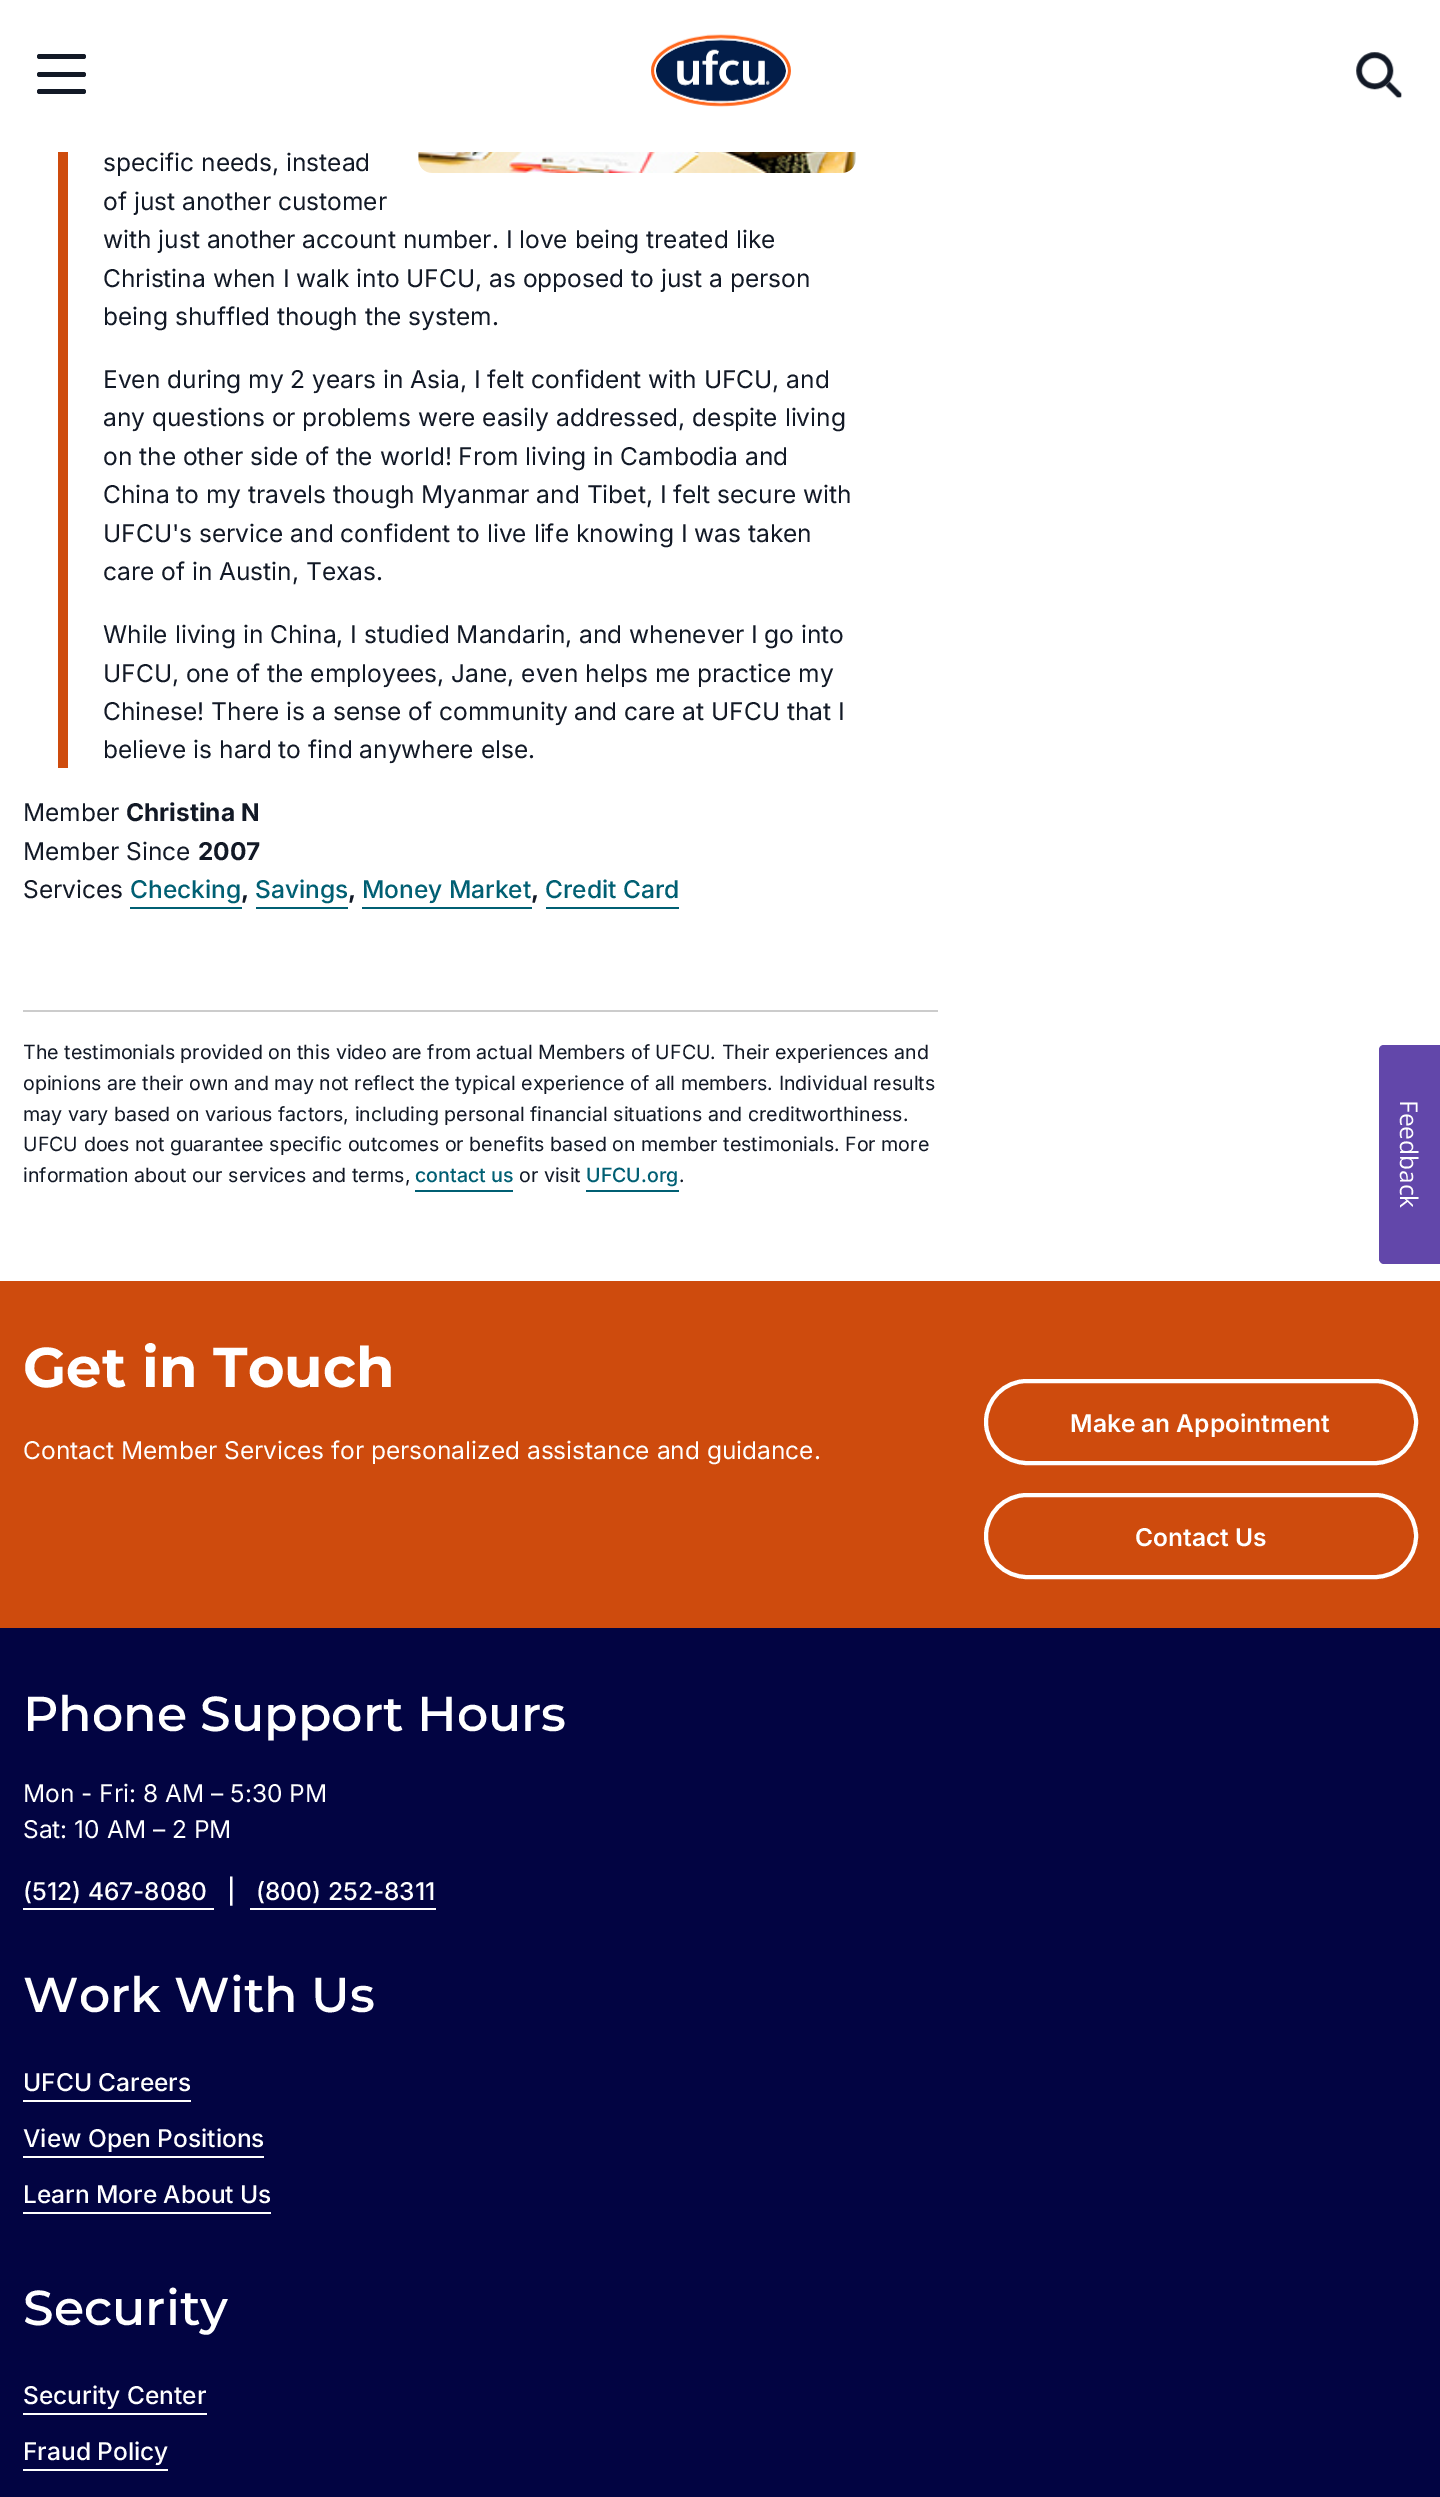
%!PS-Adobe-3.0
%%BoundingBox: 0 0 1440 2497
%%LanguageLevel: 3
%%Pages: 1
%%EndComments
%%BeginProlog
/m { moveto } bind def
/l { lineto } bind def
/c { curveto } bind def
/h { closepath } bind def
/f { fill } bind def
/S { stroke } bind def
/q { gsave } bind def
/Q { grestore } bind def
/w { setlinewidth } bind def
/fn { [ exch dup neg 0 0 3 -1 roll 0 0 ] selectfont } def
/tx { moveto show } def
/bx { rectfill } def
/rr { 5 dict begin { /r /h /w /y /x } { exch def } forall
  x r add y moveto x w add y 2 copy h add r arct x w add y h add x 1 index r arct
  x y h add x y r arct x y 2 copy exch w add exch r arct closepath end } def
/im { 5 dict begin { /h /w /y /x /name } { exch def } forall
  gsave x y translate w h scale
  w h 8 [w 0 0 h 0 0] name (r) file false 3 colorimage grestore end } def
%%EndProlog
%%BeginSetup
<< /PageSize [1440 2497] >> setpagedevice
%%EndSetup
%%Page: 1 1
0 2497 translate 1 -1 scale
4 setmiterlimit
1 setgray
0 0 1440 2497 bx
0.071 0.098 0.149 setrgbcolor
37 54 49 5 2.5 rr f
37 72 49 5 2.5 rr f
37 89 49 5 2.5 rr f
(image0.raw) 651 34 140 73 im
(image1.raw) 1356 52 46 47 im
0.808 0.294 0.051 setrgbcolor
58 152 10 616 bx
/Inter-Regular 24.5 fn
0.071 0.098 0.149 setrgbcolor
(specific needs, instead) 103 171 tx
(of just another customer) 103 210 tx
(with just another account number. I love being treated like) 103 248 tx
(Christina when I walk into UFCU, as opposed to just a person) 103 287 tx
(being shuffled though the system.) 103 325 tx
(image2.raw) 418 152 438 21 im
(Even during my 2 years in Asia, I felt confident with UFCU, and) 103 388 tx
(any questions or problems were easily addressed, despite living) 103 426 tx
(on the other side of the world! From living in Cambodia and) 103 465 tx
(China to my travels though Myanmar and Tibet, I felt secure with) 103 503 tx
(UFCU's service and confident to live life knowing I was taken) 103 542 tx
(care of in Austin, Texas.) 103 580 tx
(While living in China, I studied Mandarin, and whenever I go into) 103 643 tx
(UFCU, one of the employees, Jane, even helps me practice my) 103 682 tx
(Chinese! There is a sense of community and care at UFCU that I) 103 720 tx
(believe is hard to find anywhere else.) 103 758 tx
(Member) 23 821 tx
/Inter-Bold 24.5 fn
(Christina N) 126 821 tx
/Inter-Regular 24.5 fn
(Member Since) 23 860 tx
/Inter-Bold 24.5 fn
(2007) 198 860 tx
/Inter-Regular 24.5 fn
(Services) 23 898 tx
/Inter-Medium 24.5 fn
0 0.373 0.451 setrgbcolor
(Checking) 130 898 tx
130 907 112 2 bx
/Inter-Bold 24.5 fn
0.071 0.098 0.149 setrgbcolor
(,) 241 898 tx
/Inter-Medium 24.5 fn
0 0.373 0.451 setrgbcolor
(Savings) 255 898 tx
256 907 92 2 bx
/Inter-Bold 24.5 fn
0.071 0.098 0.149 setrgbcolor
(,) 348 898 tx
/Inter-Medium 24.5 fn
0 0.373 0.451 setrgbcolor
(Money Market) 362 898 tx
362 907 170 2 bx
/Inter-Bold 24.5 fn
0.071 0.098 0.149 setrgbcolor
(,) 531 898 tx
/Inter-Medium 24.5 fn
0 0.373 0.451 setrgbcolor
(Credit Card) 545 898 tx
546 907 133 2 bx
0.8 setgray
23 1010 915 2 bx
/Inter-Regular 19.6 fn
0.071 0.098 0.149 setrgbcolor
(The testimonials provided on this video are from actual Members of UFCU. Their experiences and) 23 1059 tx
(opinions are their own and may not reflect the typical experience of all members. Individual results) 23 1090 tx
(may vary based on various factors, including personal financial situations and creditworthiness.) 23 1121 tx
(UFCU does not guarantee specific outcomes or benefits based on member testimonials. For more) 23 1151 tx
(information about our services and terms,) 23 1182 tx
/Inter-Medium 19.6 fn
0 0.373 0.451 setrgbcolor
(contact us) 415 1182 tx
415 1190 98 2 bx
/Inter-Regular 19.6 fn
0.071 0.098 0.149 setrgbcolor
(or visit) 519 1182 tx
/Inter-Medium 19.6 fn
0 0.373 0.451 setrgbcolor
(UFCU.org) 586 1182 tx
586 1190 93 2 bx
/Inter-Regular 19.6 fn
0.071 0.098 0.149 setrgbcolor
(.) 679 1182 tx
0.384 0.278 0.667 setrgbcolor
1440 1045 m 1440 1264 l 1384 1264 l 1381 1264 1379 1261 1379 1259 c 1379 1050 l 1379 1047 1381 1045 1384 1045 c h f
/OpenSans-Regular 24.5 fn
1 setgray
q 1400 1100 translate 90 rotate 0 0 m (Feedback) show Q
0.808 0.294 0.051 setrgbcolor
0 1281 1440 347 bx
/Montserrat-Bold 56 fn
1 setgray
(Get in Touch) 23 1387 tx
/Inter-Regular 24.5 fn
(Contact Member Services for personalized assistance and guidance.) 23 1459 tx
4 w
986 1381 430 82 41 rr S
/Inter-SemiBold 24.5 fn
(Make an Appointment) 1070 1432 tx
986 1495 430 82 41 rr S
(Contact Us) 1135 1546 tx
0.008 0.016 0.259 setrgbcolor
0 1628 1440 869 bx
/Montserrat-Medium 49 fn
1 setgray
(Phone Support Hours) 23 1731 tx
/Inter-Regular 24.5 fn
(Mon - Fri: 8 AM – 5:30 PM) 23 1802 tx
(Sat: 10 AM – 2 PM) 23 1838 tx
/Inter-Medium 24.5 fn
(\(512\) 467-8080) 23 1900 tx
23 1908 191 2 bx
(|) 227 1900 tx
250 1908 186 2 bx
(\(800\) 252-8311) 256 1900 tx
/Montserrat-Medium 49 fn
(Work With Us) 23 2012 tx
/Inter-Medium 24.5 fn
(UFCU Careers) 23 2091 tx
23 2100 168 2 bx
(View Open Positions) 23 2147 tx
23 2156 241 2 bx
(Learn More About Us) 23 2203 tx
23 2212 248 2 bx
/Montserrat-Medium 49 fn
(Security) 23 2325 tx
/Inter-Medium 24.5 fn
(Security Center) 23 2404 tx
23 2413 184 2 bx
(Fraud Policy) 23 2460 tx
23 2469 145 2 bx
showpage
%%EOF
